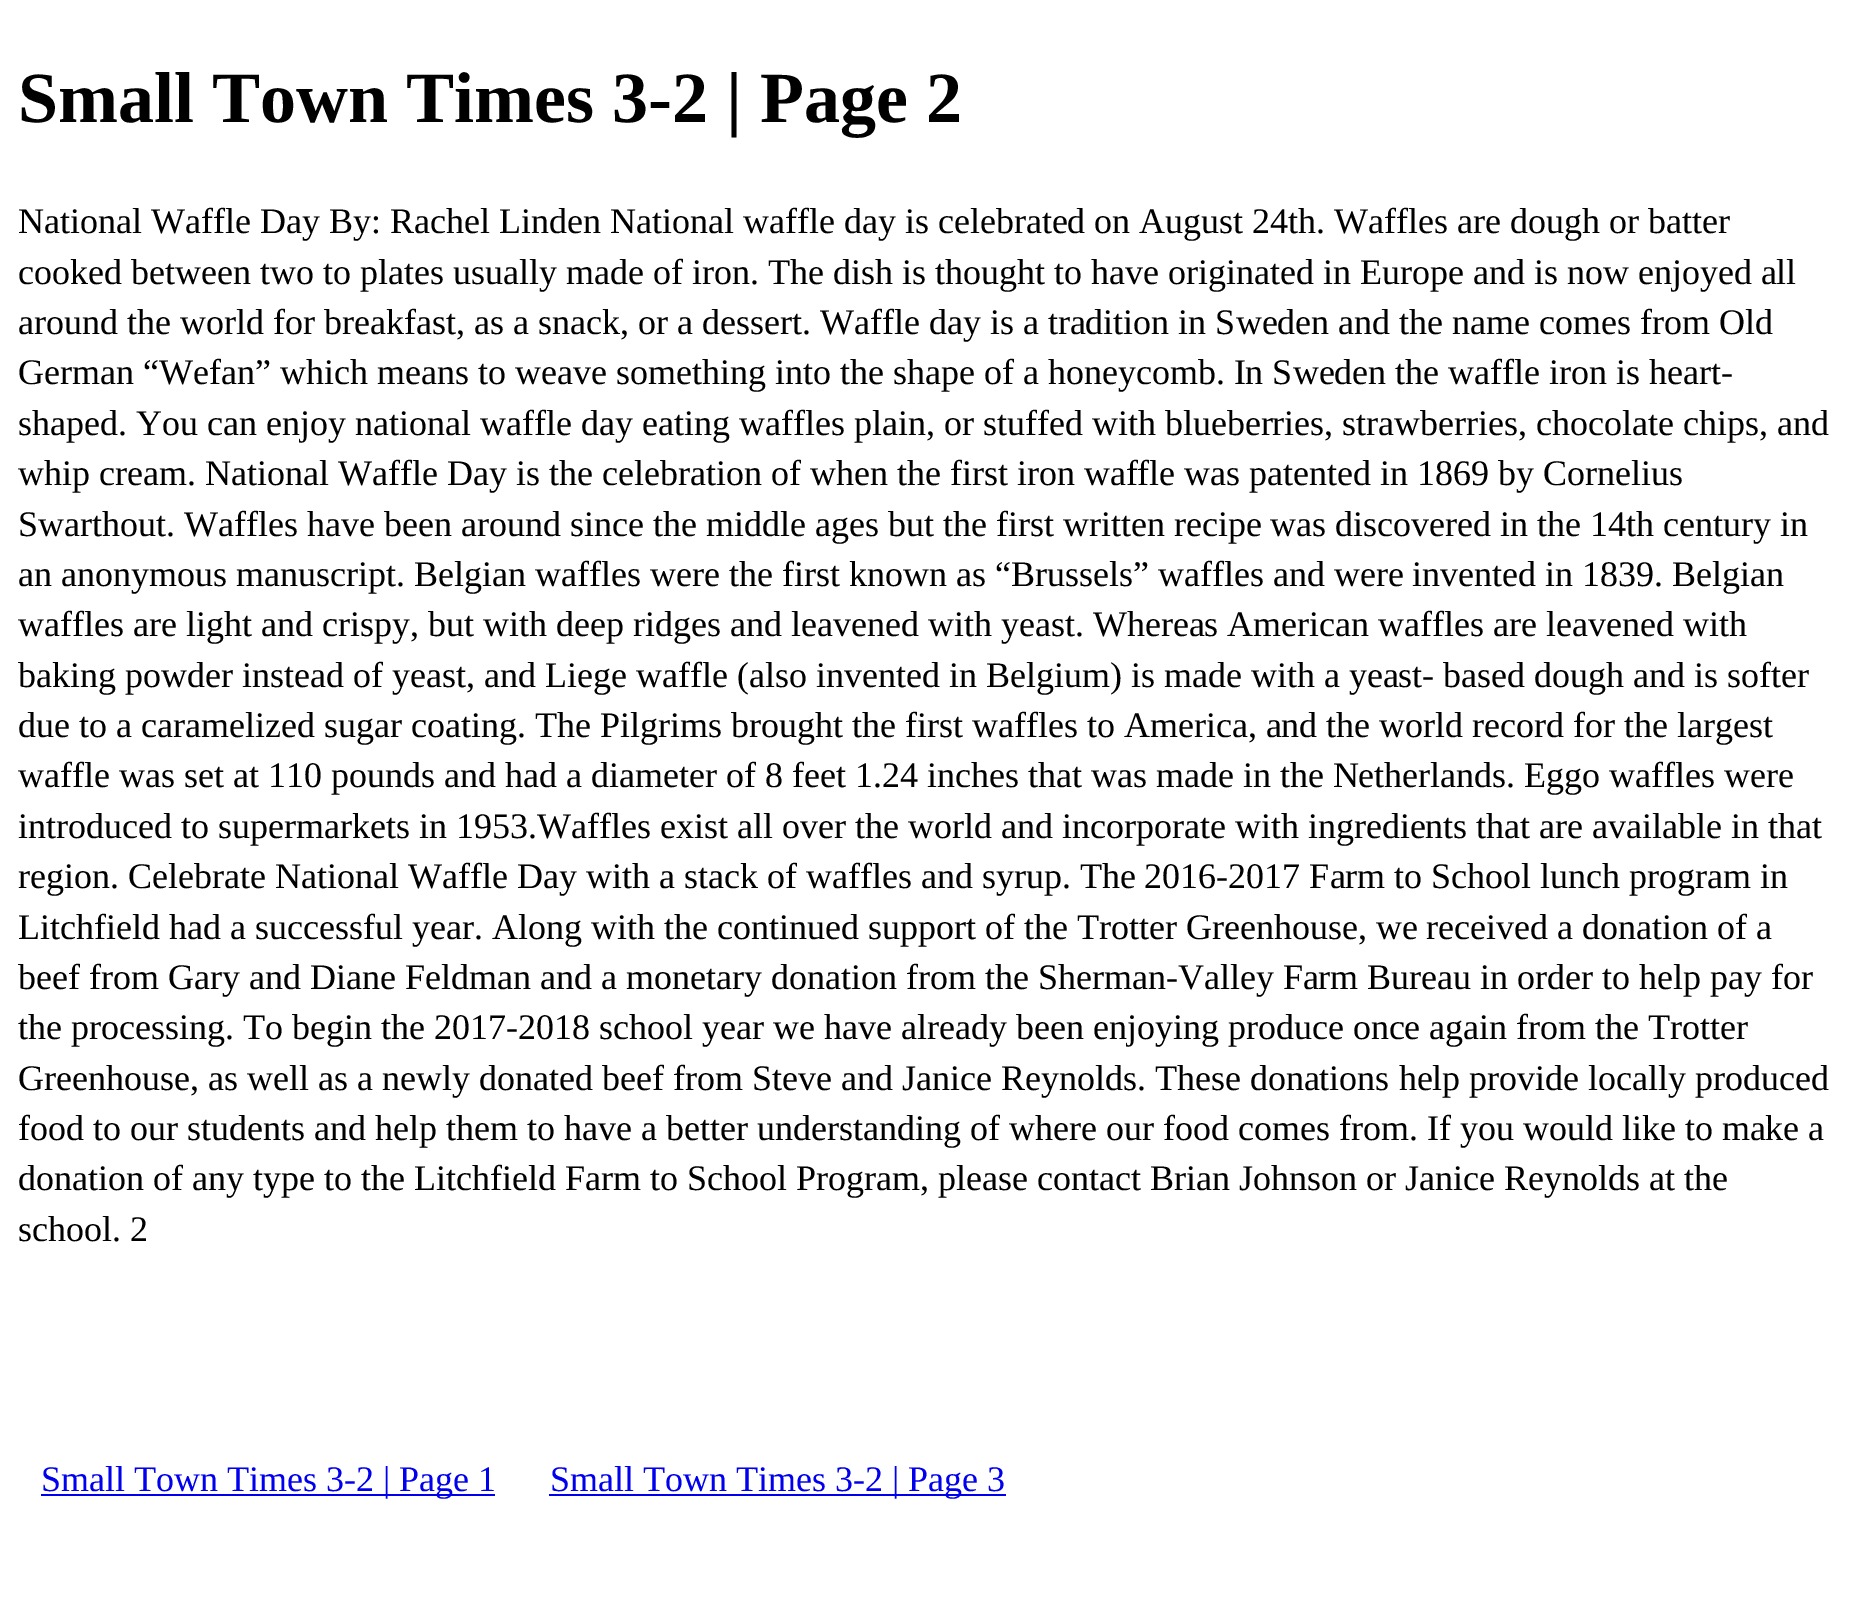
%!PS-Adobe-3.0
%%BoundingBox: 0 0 1856 1611
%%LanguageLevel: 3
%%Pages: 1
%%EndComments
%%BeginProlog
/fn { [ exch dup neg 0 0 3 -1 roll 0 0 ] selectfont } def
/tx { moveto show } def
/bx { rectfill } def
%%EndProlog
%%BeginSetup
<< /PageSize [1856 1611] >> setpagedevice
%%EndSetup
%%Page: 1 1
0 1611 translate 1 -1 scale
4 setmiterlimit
1 setgray
0 0 1856 1611 bx
/LiberationSerif-Bold 72 fn
0 setgray
(Small Town Times 3-2 | Page 2) 18 122 tx
/LiberationSerif-Regular 36 fn
(National Waffle Day By: Rachel Linden National waffle day is celebrated on August 24th. Waffles are dough or batter) 18 233 tx
(cooked between two to plates usually made of iron. The dish is thought to have originated in Europe and is now enjoyed all) 18 284 tx
(around the world for breakfast, as a snack, or a dessert. Waffle day is a tradition in Sweden and the name comes from Old) 18 334 tx
(German “Wefan” which means to weave something into the shape of a honeycomb. In Sweden the waffle iron is heart-) 18 384 tx
(shaped. You can enjoy national waffle day eating waffles plain, or stuffed with blueberries, strawberries, chocolate chips, and) 18 435 tx
(whip cream. National Waffle Day is the celebration of when the first iron waffle was patented in 1869 by Cornelius) 18 485 tx
(Swarthout. Waffles have been around since the middle ages but the first written recipe was discovered in the 14th century in) 18 536 tx
(an anonymous manuscript. Belgian waffles were the first known as “Brussels” waffles and were invented in 1839. Belgian) 18 586 tx
(waffles are light and crispy, but with deep ridges and leavened with yeast. Whereas American waffles are leavened with) 18 636 tx
(baking powder instead of yeast, and Liege waffle \(also invented in Belgium\) is made with a yeast- based dough and is softer) 18 687 tx
(due to a caramelized sugar coating. The Pilgrims brought the first waffles to America, and the world record for the largest) 18 737 tx
(waffle was set at 110 pounds and had a diameter of 8 feet 1.24 inches that was made in the Netherlands. Eggo waffles were) 18 787 tx
(introduced to supermarkets in 1953.Waffles exist all over the world and incorporate with ingredients that are available in that) 18 838 tx
(region. Celebrate National Waffle Day with a stack of waffles and syrup. The 2016-2017 Farm to School lunch program in) 18 888 tx
(Litchfield had a successful year. Along with the continued support of the Trotter Greenhouse, we received a donation of a) 18 939 tx
(beef from Gary and Diane Feldman and a monetary donation from the Sherman-Valley Farm Bureau in order to help pay for) 18 989 tx
(the processing. To begin the 2017-2018 school year we have already been enjoying produce once again from the Trotter) 18 1039 tx
(Greenhouse, as well as a newly donated beef from Steve and Janice Reynolds. These donations help provide locally produced) 18 1090 tx
(food to our students and help them to have a better understanding of where our food comes from. If you would like to make a) 18 1140 tx
(donation of any type to the Litchfield Farm to School Program, please contact Brian Johnson or Janice Reynolds at the) 18 1190 tx
(school. 2) 18 1241 tx
0 0 0.933 setrgbcolor
41 1494 454 2 bx
(Small Town Times 3-2 | Page 1) 41 1491 tx
549 1494 457 2 bx
(Small Town Times 3-2 | Page 3) 550 1491 tx
showpage
%%EOF
